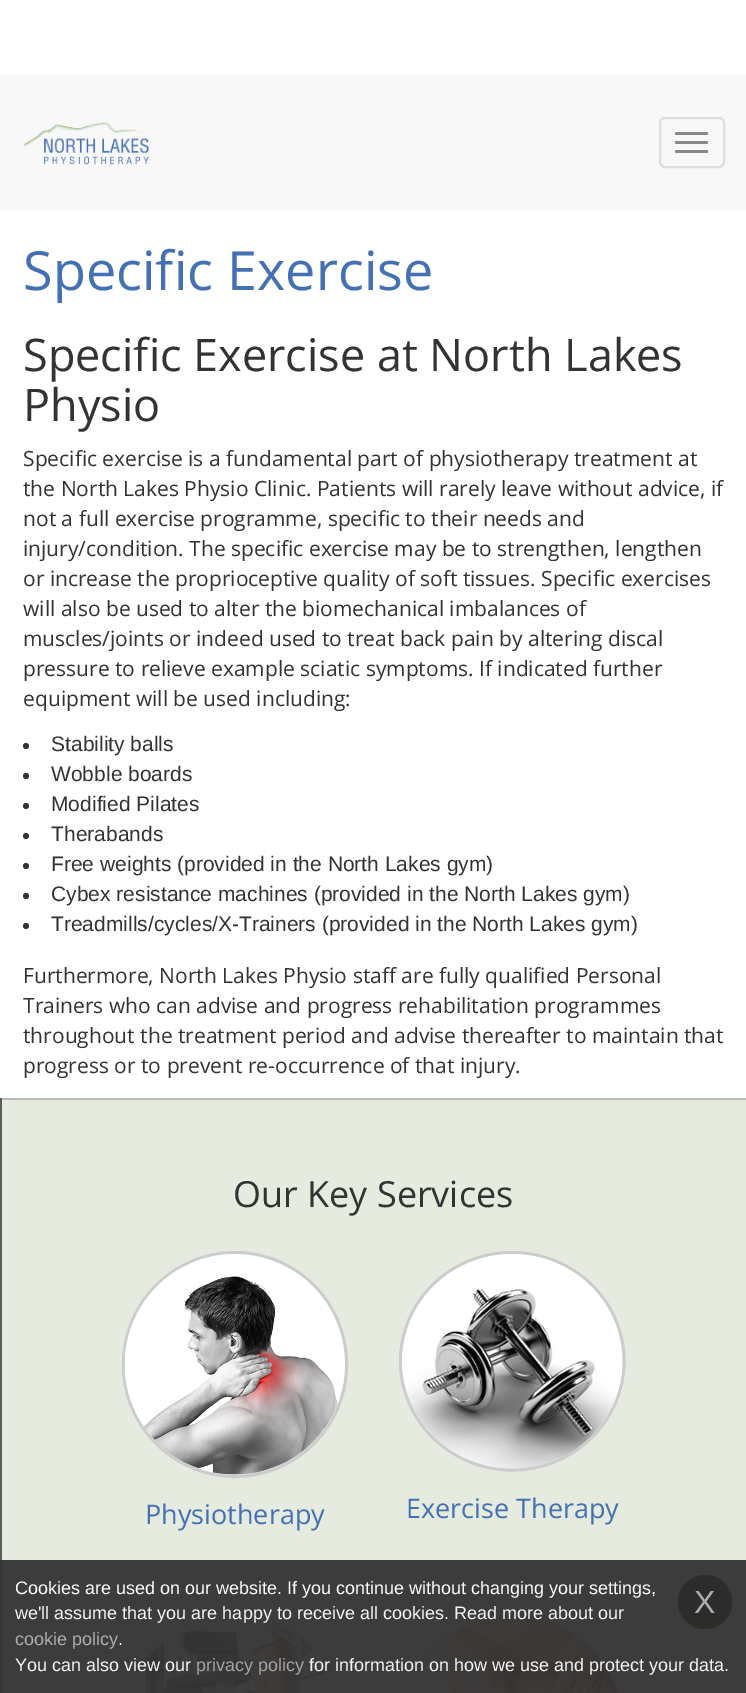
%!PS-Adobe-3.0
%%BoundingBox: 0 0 746 1693
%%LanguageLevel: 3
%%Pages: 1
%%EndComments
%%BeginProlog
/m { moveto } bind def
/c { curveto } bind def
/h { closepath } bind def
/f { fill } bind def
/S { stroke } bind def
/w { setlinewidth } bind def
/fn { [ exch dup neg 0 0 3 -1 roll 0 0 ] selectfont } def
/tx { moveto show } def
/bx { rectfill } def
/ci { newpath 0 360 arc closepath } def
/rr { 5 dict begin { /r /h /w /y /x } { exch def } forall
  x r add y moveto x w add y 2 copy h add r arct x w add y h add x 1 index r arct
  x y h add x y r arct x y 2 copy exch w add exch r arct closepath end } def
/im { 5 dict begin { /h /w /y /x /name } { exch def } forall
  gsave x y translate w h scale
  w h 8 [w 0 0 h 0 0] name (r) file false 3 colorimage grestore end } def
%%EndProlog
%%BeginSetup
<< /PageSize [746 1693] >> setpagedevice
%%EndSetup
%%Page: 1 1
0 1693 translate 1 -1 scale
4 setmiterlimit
1 setgray
0 0 746 1693 bx
0.973 setgray
0 75 746 135 bx
(image0.raw) 23 122 126 43 im
0.867 setgray
2 w
660 118 64 49 5 rr S
0.533 setgray
675 132 33 3 1.5 rr f
675 141 33 3 1.5 rr f
675 150 33 3 1.5 rr f
/OpenSans-Regular 54 fn
0.267 0.439 0.706 setrgbcolor
(Specific Exercise) 23 290 tx
/OpenSans-Regular 45 fn
0.2 setgray
(Specific Exercise at North Lakes) 23 371 tx
(Physio) 23 421 tx
/OpenSans-Regular 21 fn
(Specific exercise is a fundamental part of physiotherapy treatment at) 23 466 tx
(the North Lakes Physio Clinic. Patients will rarely leave without advice, if) 23 496 tx
(not a full exercise programme, specific to their needs and) 23 526 tx
(injury/condition. The specific exercise may be to strengthen, lengthen) 23 556 tx
(or increase the proprioceptive quality of soft tissues. Specific exercises) 23 586 tx
(will also be used to alter the biomechanical imbalances of) 23 616 tx
(muscles/joints or indeed used to treat back pain by altering discal) 23 646 tx
(pressure to relieve example sciatic symptoms. If indicated further) 23 676 tx
(equipment will be used including:) 23 706 tx
26 746 3 ci f
/LiberationSans-Regular 21 fn
(Stability balls) 51 751 tx
26 776 3 ci f
(Wobble boards) 51 781 tx
26 806 3 ci f
(Modified Pilates) 51 811 tx
26 836 3 ci f
(Therabands) 51 841 tx
26 866 3 ci f
(Free weights \(provided in the North Lakes gym\)) 51 871 tx
26 896 3 ci f
(Cybex resistance machines \(provided in the North Lakes gym\)) 51 901 tx
26 926 3 ci f
(Treadmills/cycles/X-Trainers \(provided in the North Lakes gym\)) 51 931 tx
/OpenSans-Regular 21 fn
(Furthermore, North Lakes Physio staff are fully qualified Personal) 23 983 tx
(Trainers who can advise and progress rehabilitation programmes) 23 1013 tx
(throughout the treatment period and advise thereafter to maintain that) 23 1043 tx
(progress or to prevent re-occurrence of that injury.) 23 1073 tx
0.898 0.922 0.871 setrgbcolor
2 1100 744 460 bx
0.235 setgray
2 1560 744 133 bx
0.718 0.737 0.698 setrgbcolor
0 1098 746 2 bx
0.357 0.361 0.365 setrgbcolor
0 1098 2 462 bx
0.208 setgray
0 1560 2 133 bx
/OpenSans-Regular 36 fn
0.2 setgray
(Our Key Services) 233 1207 tx
0.8 setgray
3 w
123.5 1252.5 223 224 111.5 rr S
(image1.raw) 124 1254 221 221 im
/OpenSans-Regular 27 fn
0.267 0.439 0.706 setrgbcolor
(Physiotherapy) 145 1524 tx
0.8 setgray
512 1252.5 m 574 1252.5 624 1301 624 1361 c 624 1421.5 574 1470 512 1470 c 450.5 1470 400.5 1421.5 400.5 1361 c 400.5 1301 450.5 1252.5 512 1252.5 c h S
(image2.raw) 402 1254 221 215 im
0.267 0.439 0.706 setrgbcolor
(Exercise Therapy) 406 1518 tx
(image3.raw) 129 1615 211 78 im
(image4.raw) 407 1615 211 78 im
/LiberationSans-Regular 18 fn
0.996 0.996 0.992 setrgbcolor
(Cookies are used on our website. If you continue without changing your settings,) 15 1594 tx
0.961 setgray
(we'll assume that you are happy to receive all cookies. Read more about our) 15 1619 tx
0.173 0.173 0.169 setrgbcolor
705 1602 27 ci f
/LiberationSans-Regular 32 fn
0.678 setgray
(X) 694 1613 tx
/LiberationSans-Regular 18 fn
(cookie policy) 15 1645 tx
0.996 0.996 0.992 setrgbcolor
(.) 118 1645 tx
0.961 setgray
(You can also view our) 15 1671 tx
0.643 setgray
(privacy policy) 196 1671 tx
0.961 setgray
(for information on how we use and protect your data.) 309 1671 tx
showpage
%%EOF
